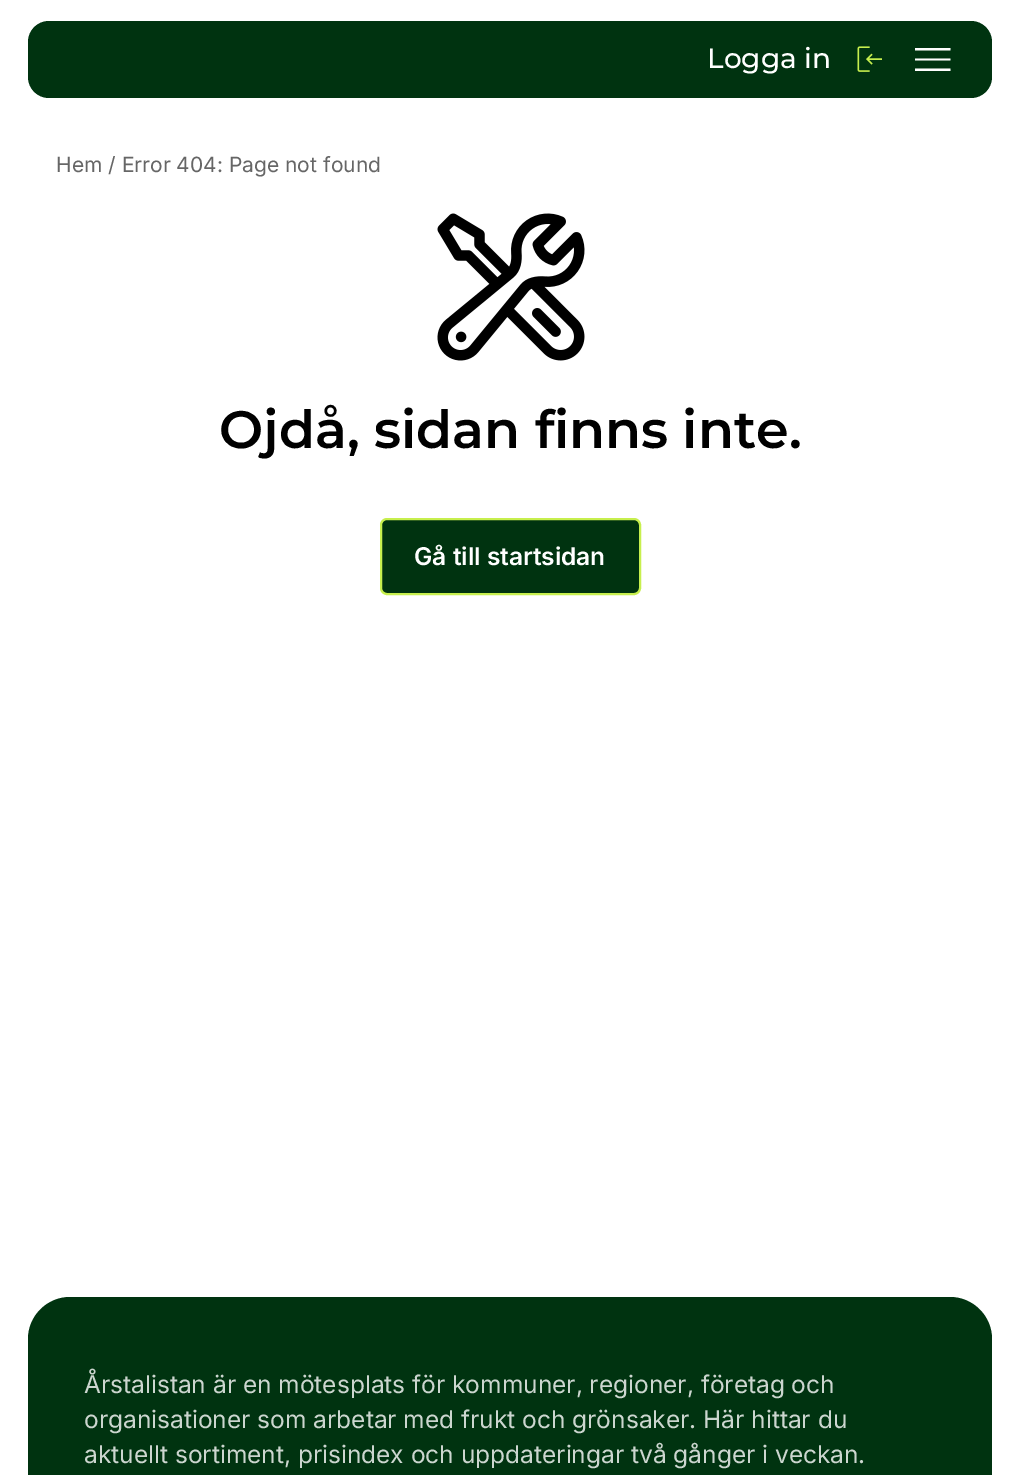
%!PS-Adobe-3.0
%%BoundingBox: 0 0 1019 1475
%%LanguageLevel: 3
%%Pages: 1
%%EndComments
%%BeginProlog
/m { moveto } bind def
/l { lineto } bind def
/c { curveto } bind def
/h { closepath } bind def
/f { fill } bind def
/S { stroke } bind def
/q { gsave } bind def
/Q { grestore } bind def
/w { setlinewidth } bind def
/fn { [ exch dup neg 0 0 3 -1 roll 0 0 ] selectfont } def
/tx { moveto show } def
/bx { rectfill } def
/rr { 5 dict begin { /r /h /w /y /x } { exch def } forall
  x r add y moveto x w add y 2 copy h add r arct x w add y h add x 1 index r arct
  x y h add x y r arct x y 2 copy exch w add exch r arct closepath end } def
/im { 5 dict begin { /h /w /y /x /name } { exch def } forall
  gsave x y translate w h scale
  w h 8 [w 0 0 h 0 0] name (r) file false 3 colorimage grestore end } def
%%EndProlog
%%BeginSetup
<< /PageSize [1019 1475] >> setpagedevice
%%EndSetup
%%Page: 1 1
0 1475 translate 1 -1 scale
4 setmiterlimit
1 setgray
0 0 1019 1475 bx
0 0.2 0.063 setrgbcolor
28 21 964 77 21 rr f
/Montserrat-Medium 28 fn
1 setgray
(Logga in) 707 68 tx
(image0.raw) 857 46 25 26 im
915 71 m 915 68.5 l 950.5 68.5 l 950.5 71 l h 915 60.5 m 915 58.5 l 950.5 58.5 l 950.5 60.5 l h 915 50.5 m 915 48 l 950.5 48 l 950.5 50.5 l h f
/Inter-Regular 21 fn
0.4 setgray
(Hem / Error 404: Page not found) 56 172 tx
(image1.raw) 437 213 148 148 im
/Montserrat-SemiBold 52.5 fn
0 setgray
(Ojdå, sidan finns inte.) 219 448 tx
0 0.2 0.063 setrgbcolor
381 519 259 75 6 rr q f Q
0.78 0.937 0.306 setrgbcolor
2 w
S
/Inter-SemiBold 24.5 fn
1 setgray
(Gå till startsidan) 414 565 tx
0 0.2 0.063 setrgbcolor
70 1297 m 950 1297 l 973 1297 992 1316 992 1339 c 992 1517 l 28 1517 l 28 1339 l 28 1316 47 1297 70 1297 c h f
/Inter-Regular 24.5 fn
0.8 0.839 0.812 setrgbcolor
(Årstalistan är en mötesplats för kommuner, regioner, företag och) 84 1393 tx
(organisationer som arbetar med frukt och grönsaker. Här hittar du) 84 1428 tx
(aktuellt sortiment, prisindex och uppdateringar två gånger i veckan.) 84 1463 tx
showpage
%%EOF
